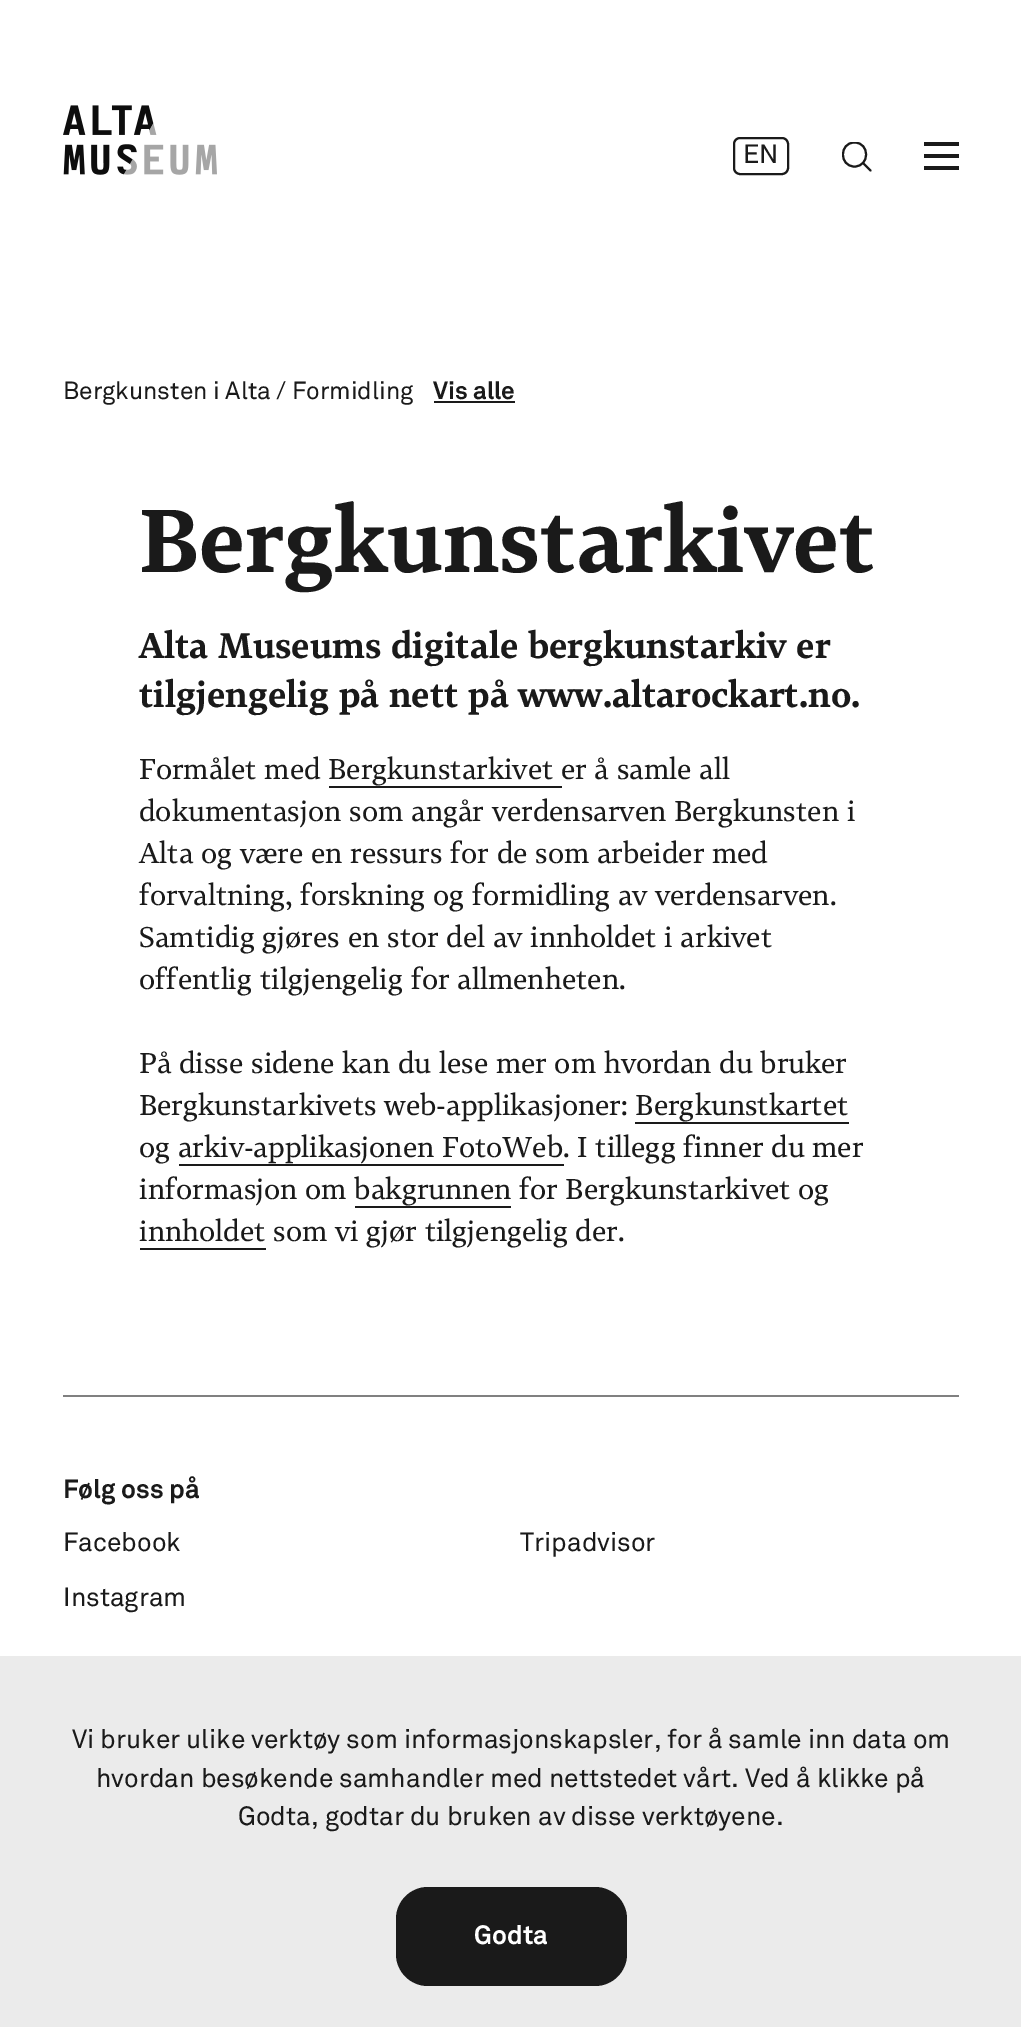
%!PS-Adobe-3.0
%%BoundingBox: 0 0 1021 2027
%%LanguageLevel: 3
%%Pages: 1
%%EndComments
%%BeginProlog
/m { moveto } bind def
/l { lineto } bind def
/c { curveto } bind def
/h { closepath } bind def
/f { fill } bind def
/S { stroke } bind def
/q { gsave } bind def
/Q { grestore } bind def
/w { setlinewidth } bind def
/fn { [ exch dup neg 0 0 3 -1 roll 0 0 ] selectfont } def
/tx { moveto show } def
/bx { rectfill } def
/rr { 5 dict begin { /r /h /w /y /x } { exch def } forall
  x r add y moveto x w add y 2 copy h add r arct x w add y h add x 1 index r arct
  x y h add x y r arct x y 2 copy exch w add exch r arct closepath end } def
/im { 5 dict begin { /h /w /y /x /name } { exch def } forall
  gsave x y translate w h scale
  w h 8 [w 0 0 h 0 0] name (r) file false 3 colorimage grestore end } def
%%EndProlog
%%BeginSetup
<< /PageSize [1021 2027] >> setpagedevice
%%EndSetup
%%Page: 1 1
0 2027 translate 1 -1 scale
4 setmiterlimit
1 setgray
0 0 1021 2027 bx
(image0.raw) 63 105 154 70 im
0.102 setgray
2 w
734 138 54 36 6 rr S
/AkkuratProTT-Regular 26.25 fn
(EN) 743 163 tx
q
842 142 30 30 rectclip
1 setlinecap
1 setlinejoin
854.5 166.5 m 870 166.5 870 142.5 854.5 142.5 c 839 142.5 839 166.5 854.5 166.5 c h 870.5 170.5 m 863 163 l S
Q
924 142 35 4 bx
924 154 35 4 bx
924 166 35 4 bx
/AkkuratProTT-Regular 24.5 fn
(Bergkunsten i Alta / Formidling) 63 399 tx
/AkkuratProTT-Bold 24.5 fn
(Vis alle) 433 399 tx
434 401 81 2 bx
/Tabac-Regular 87.5 fn
(Bergkunstarkivet) 139 572 tx
/Tabac-Regular 35 fn
(Alta Museums digitale bergkunstarkiv er) 139 658 tx
(tilgjengelig på nett på www.altarockart.no.) 139 707 tx
/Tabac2-Regular 28 fn
(Formålet med Bergkunstarkivet er å samle all) 139 779 tx
329 786 233 2 bx
(dokumentasjon som angår verdensarven Bergkunsten i) 139 821 tx
(Alta og være en ressurs for de som arbeider med) 139 863 tx
(forvaltning, forskning og formidling av verdensarven.) 139 905 tx
(Samtidig gjøres en stor del av innholdet i arkivet) 139 947 tx
(offentlig tilgjengelig for allmenheten.) 139 989 tx
(På disse sidene kan du lese mer om hvordan du bruker) 139 1073 tx
(Bergkunstarkivets web-applikasjoner: Bergkunstkartet) 139 1115 tx
635 1122 214 2 bx
(og arkiv-applikasjonen FotoWeb. I tillegg finner du mer) 139 1157 tx
179 1164 385 2 bx
(informasjon om bakgrunnen for Bergkunstarkivet og) 139 1199 tx
355 1206 156 2 bx
(innholdet som vi gjør tilgjengelig der.) 139 1241 tx
140 1248 126 2 bx
0.502 setgray
63 1395 896 2 bx
/AkkuratProTT-Bold 26.25 fn
0.102 setgray
(Følg oss på) 63 1498 tx
/AkkuratProTT-Regular 26.25 fn
(Facebook) 63 1551 tx
(Tripadvisor) 520 1551 tx
(Instagram) 63 1606 tx
0.922 setgray
0 1656 1021 371 bx
0.102 setgray
(Vi bruker ulike verktøy som informasjonskapsler, for å samle inn data om) 72 1748 tx
(hvordan besøkende samhandler med nettstedet vårt. Ved å klikke på) 96 1787 tx
(Godta, godtar du bruken av disse verktøyene.) 238 1825 tx
396 1887 231 99 32 rr f
/AkkuratProTT-Bold 26.25 fn
1 setgray
(Godta) 474 1944 tx
showpage
%%EOF
